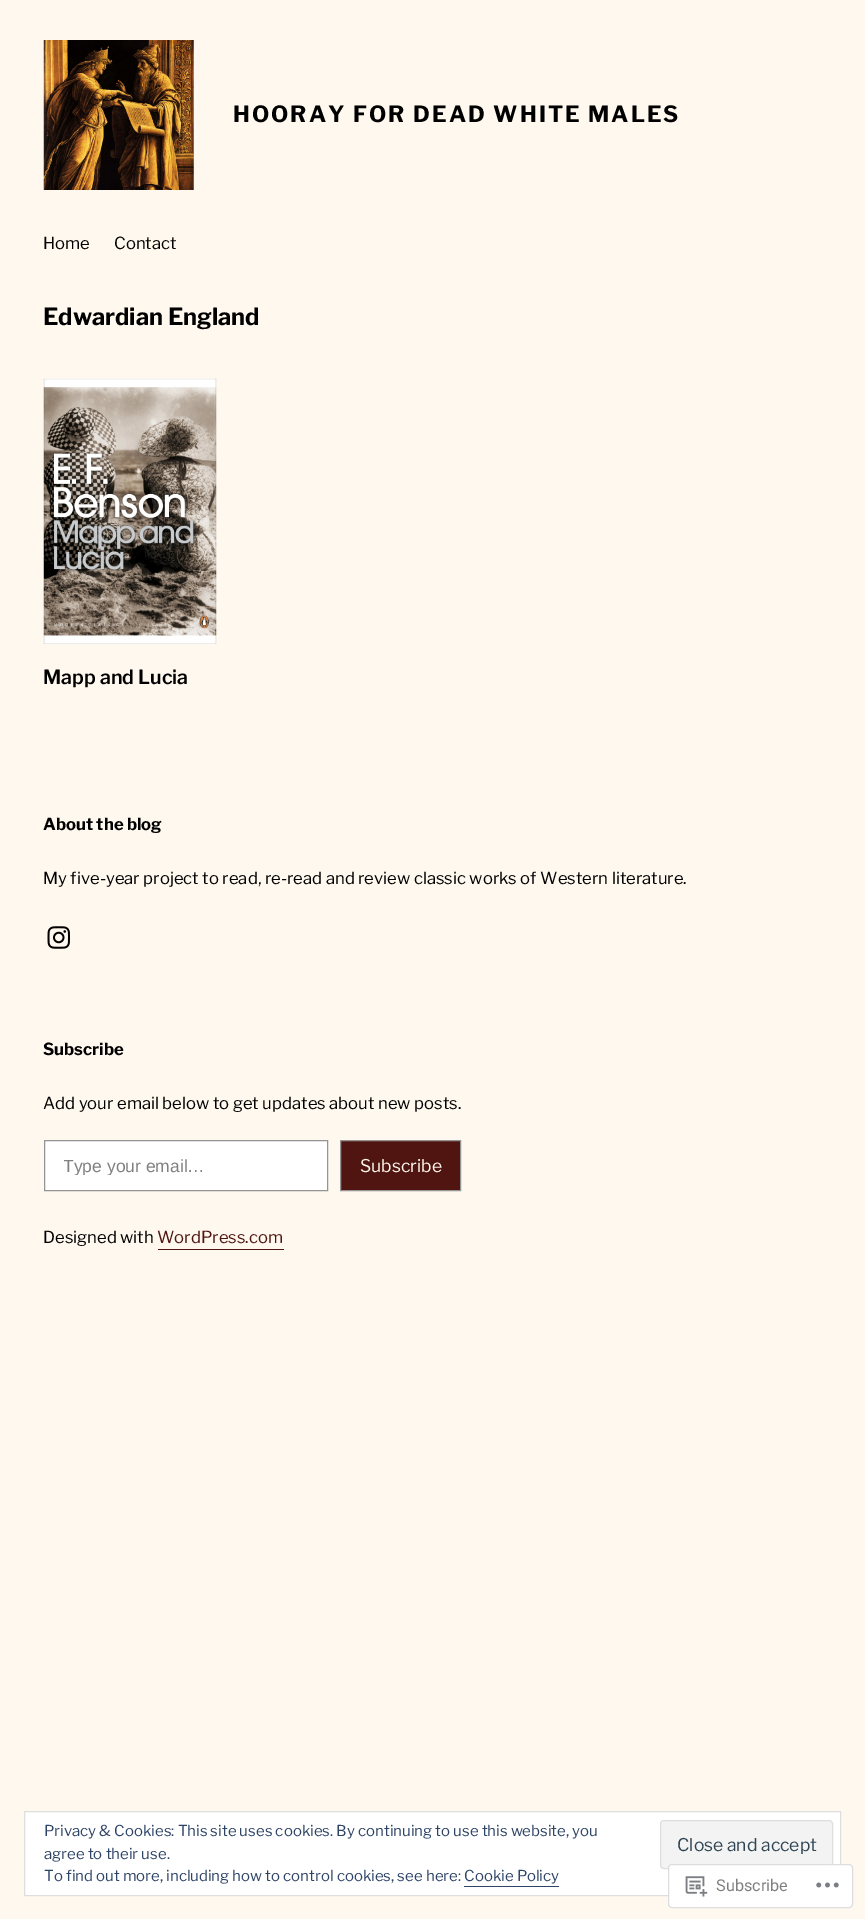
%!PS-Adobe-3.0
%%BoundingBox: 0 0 865 1919
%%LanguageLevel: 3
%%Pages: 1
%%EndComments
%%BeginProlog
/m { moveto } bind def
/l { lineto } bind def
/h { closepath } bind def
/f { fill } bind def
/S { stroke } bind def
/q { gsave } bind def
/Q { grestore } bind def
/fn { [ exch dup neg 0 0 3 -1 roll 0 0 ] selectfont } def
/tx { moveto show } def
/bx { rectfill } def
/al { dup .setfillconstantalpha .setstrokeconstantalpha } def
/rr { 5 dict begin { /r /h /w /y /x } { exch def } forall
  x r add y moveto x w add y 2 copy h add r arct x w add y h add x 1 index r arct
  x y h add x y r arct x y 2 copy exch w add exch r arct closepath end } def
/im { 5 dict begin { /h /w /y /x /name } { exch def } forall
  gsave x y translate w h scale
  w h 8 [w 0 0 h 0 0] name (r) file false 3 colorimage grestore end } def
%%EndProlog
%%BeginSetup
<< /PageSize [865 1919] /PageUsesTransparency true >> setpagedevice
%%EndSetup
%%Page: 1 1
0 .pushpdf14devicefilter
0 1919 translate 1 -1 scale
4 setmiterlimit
1 0.973 0.933 setrgbcolor
0 0 865 1919 bx
(image0.raw) 43 40 151 150 im
/LibreFranklin-Bold 22.4 fn
0 setgray
233 122 m 2 0 (HOORAY FOR DEAD WHITE MALES) ashow
/LibreFranklin-Regular 16.65 fn
(Home) 43 249 tx
(Contact) 114 249 tx
/LibreFranklin-Bold 23.5 fn
(Edwardian England) 43 325 tx
(image1.raw) 43 378 174 266 im
/LibreFranklin-SemiBold 19.5 fn
(Mapp and Lucia) 43 684 tx
/LibreFranklin-Bold 16.65 fn
(About the blog) 43 830 tx
/LibreFranklin-Regular 16.65 fn
(My five-year project to read, re-read and review classic works of Western literature.) 43 884 tx
(image2.raw) 47 926 23 23 im
/LibreFranklin-Bold 16.65 fn
(Subscribe) 43 1055 tx
/LibreFranklin-Regular 16.65 fn
(Add your email below to get updates about new posts.) 43 1109 tx
1 setgray
44.5 1140.5 m 327.5 1140.5 l 327.5 1190.5 l 44.5 1190.5 l h q f Q
0.58 setgray
S
q
64 1155 244 20 rectclip
/LiberationSans-Regular 17.5 fn
0.502 setgray
(Type your email…) 63 1172 tx
Q
0.314 0.082 0.067 setrgbcolor
340.5 1140.5 m 460.5 1140.5 l 460.5 1190.5 l 340.5 1190.5 l h q f Q
0.58 setgray
S
/LibreFranklin-Regular 17.5 fn
1 0.973 0.933 setrgbcolor
(Subscribe) 360 1172 tx
/LibreFranklin-Regular 16.65 fn
0 setgray
(Designed with) 43 1243 tx
0.314 0.082 0.067 setrgbcolor
(WordPress.com) 157 1243 tx
158 1249 126 1 bx
1 setgray
24.5 1811.5 m 840.5 1811.5 l 840.5 1895.5 l 24.5 1895.5 l h q f Q
0.871 setgray
S
/LibreFranklin-Regular 15 fn
0.18 0.267 0.404 setrgbcolor
(Privacy & Cookies: This site uses cookies. By continuing to use this website, you) 44 1836 tx
(agree to their use.) 44 1859 tx
0.953 setgray
660.5 1820.5 172 48 3.5 rr q f Q
0.871 setgray
S
/LibreFranklin-Regular 17.5 fn
0.18 0.267 0.325 setrgbcolor
(Close and accept) 677 1851 tx
/LibreFranklin-Regular 15 fn
0.18 0.267 0.404 setrgbcolor
(To find out more, including how to control cookies, see here: Cookie Policy) 44 1881 tx
464 1886 95 1 bx
0.98 al
1 setgray
668 1864 185 44 4 rr f
0.863 0.863 0.871 setrgbcolor
668.5 1864.5 184 43 3.5 rr S
1 al
(image3.raw) 685 1876 23 21 im
/Roboto-Regular 16.25 fn
0.502 setgray
(Subscribe) 716 1891 tx
(image4.raw) 816 1882 23 6 im
.poppdf14devicefilter showpage
%%EOF
